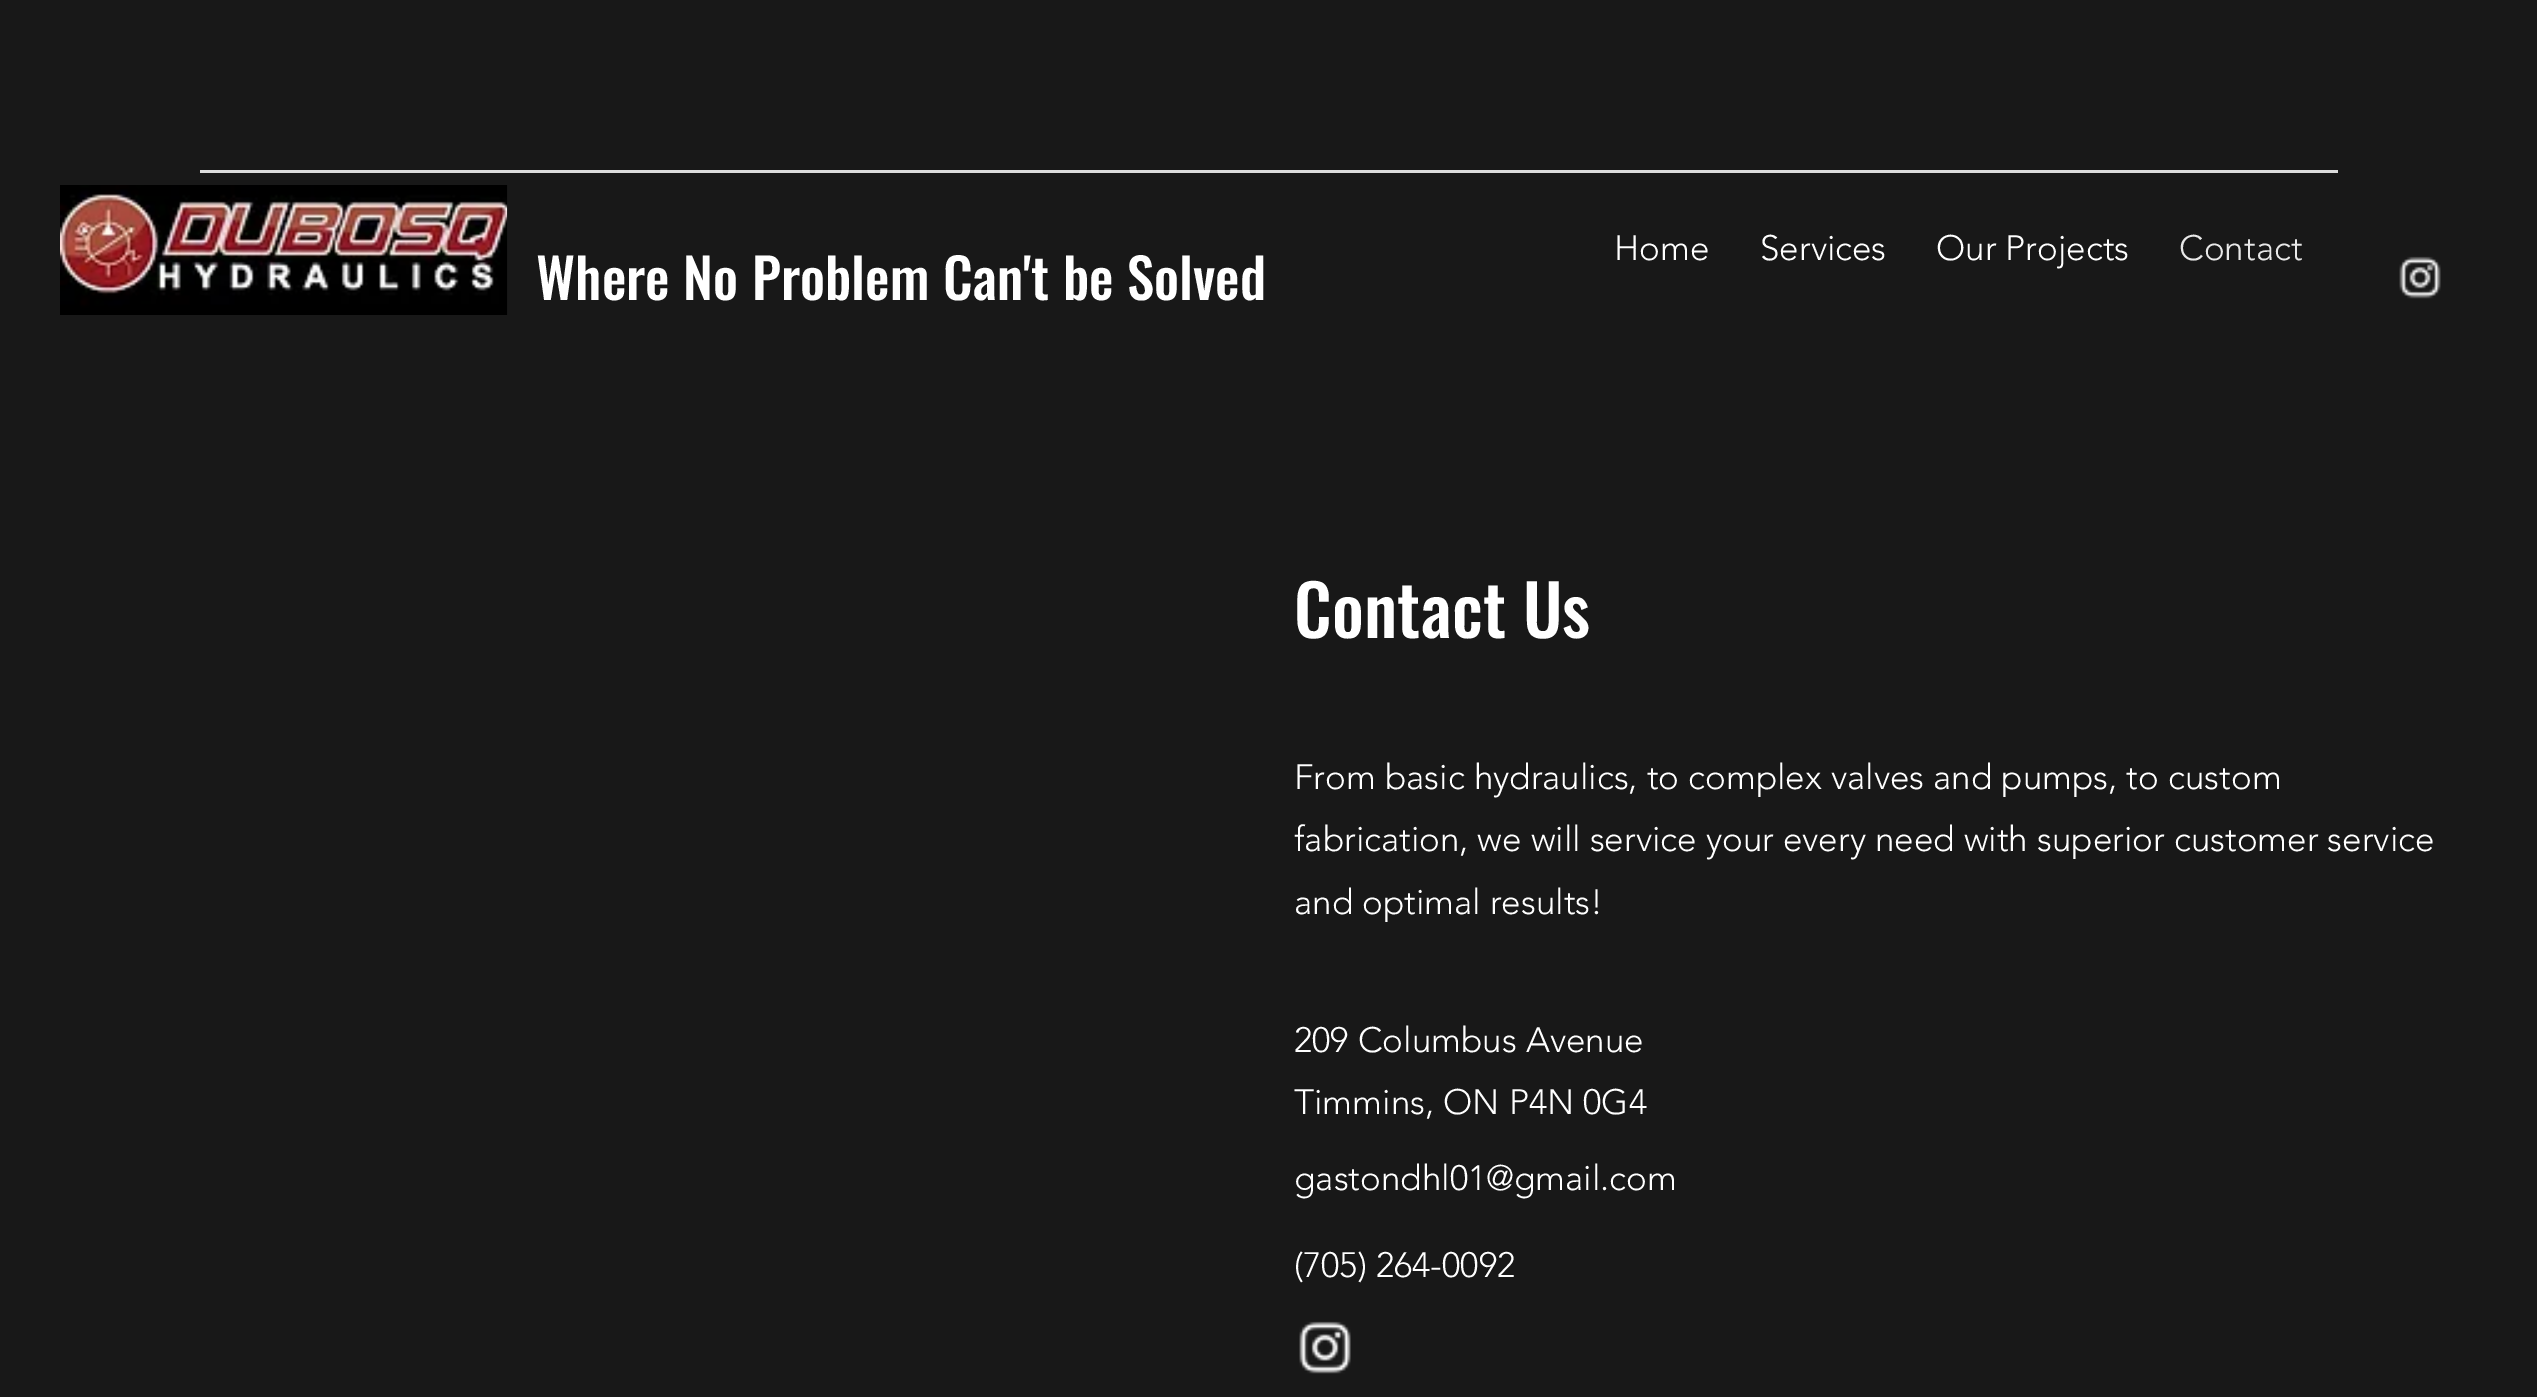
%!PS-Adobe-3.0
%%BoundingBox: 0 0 2537 1397
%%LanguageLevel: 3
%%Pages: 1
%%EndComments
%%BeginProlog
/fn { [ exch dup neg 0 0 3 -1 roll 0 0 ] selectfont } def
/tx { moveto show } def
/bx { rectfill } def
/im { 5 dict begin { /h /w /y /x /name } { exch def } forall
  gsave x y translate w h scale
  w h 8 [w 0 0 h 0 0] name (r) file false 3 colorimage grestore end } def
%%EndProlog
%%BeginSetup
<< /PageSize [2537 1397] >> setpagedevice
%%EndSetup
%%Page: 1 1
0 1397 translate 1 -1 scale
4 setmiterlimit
0.094 setgray
0 0 2537 1397 bx
0.863 setgray
200 170 2138 3 bx
(image0.raw) 60 185 448 130 im
/Oswald-Medium 55 fn
1 setgray
(Where No Problem Can't be Solved) 536 300 tx
/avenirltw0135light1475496-Light 35 fn
(Home) 1614 260 tx
(Services) 1760 260 tx
(Our Projects) 1936 260 tx
0.91 setgray
(Contact) 2179 260 tx
(image1.raw) 2399 256 42 43 im
/Oswald-Medium 70 fn
1 setgray
(Contact Us) 1294 638 tx
/avenirltw0135light1475496-Light 35 fn
(From basic hydraulics, to complex valves and pumps, to custom) 1294 789 tx
(fabrication, we will service your every need with superior customer service) 1294 851 tx
(and optimal results!) 1294 914 tx
(209 Columbus Avenue) 1294 1052 tx
(Timmins, ON P4N 0G4) 1294 1114 tx
(gastondhl01@gmail.com) 1294 1190 tx
(\(705\) 264-0092) 1294 1277 tx
(image2.raw) 1299 1321 52 53 im
showpage
%%EOF
